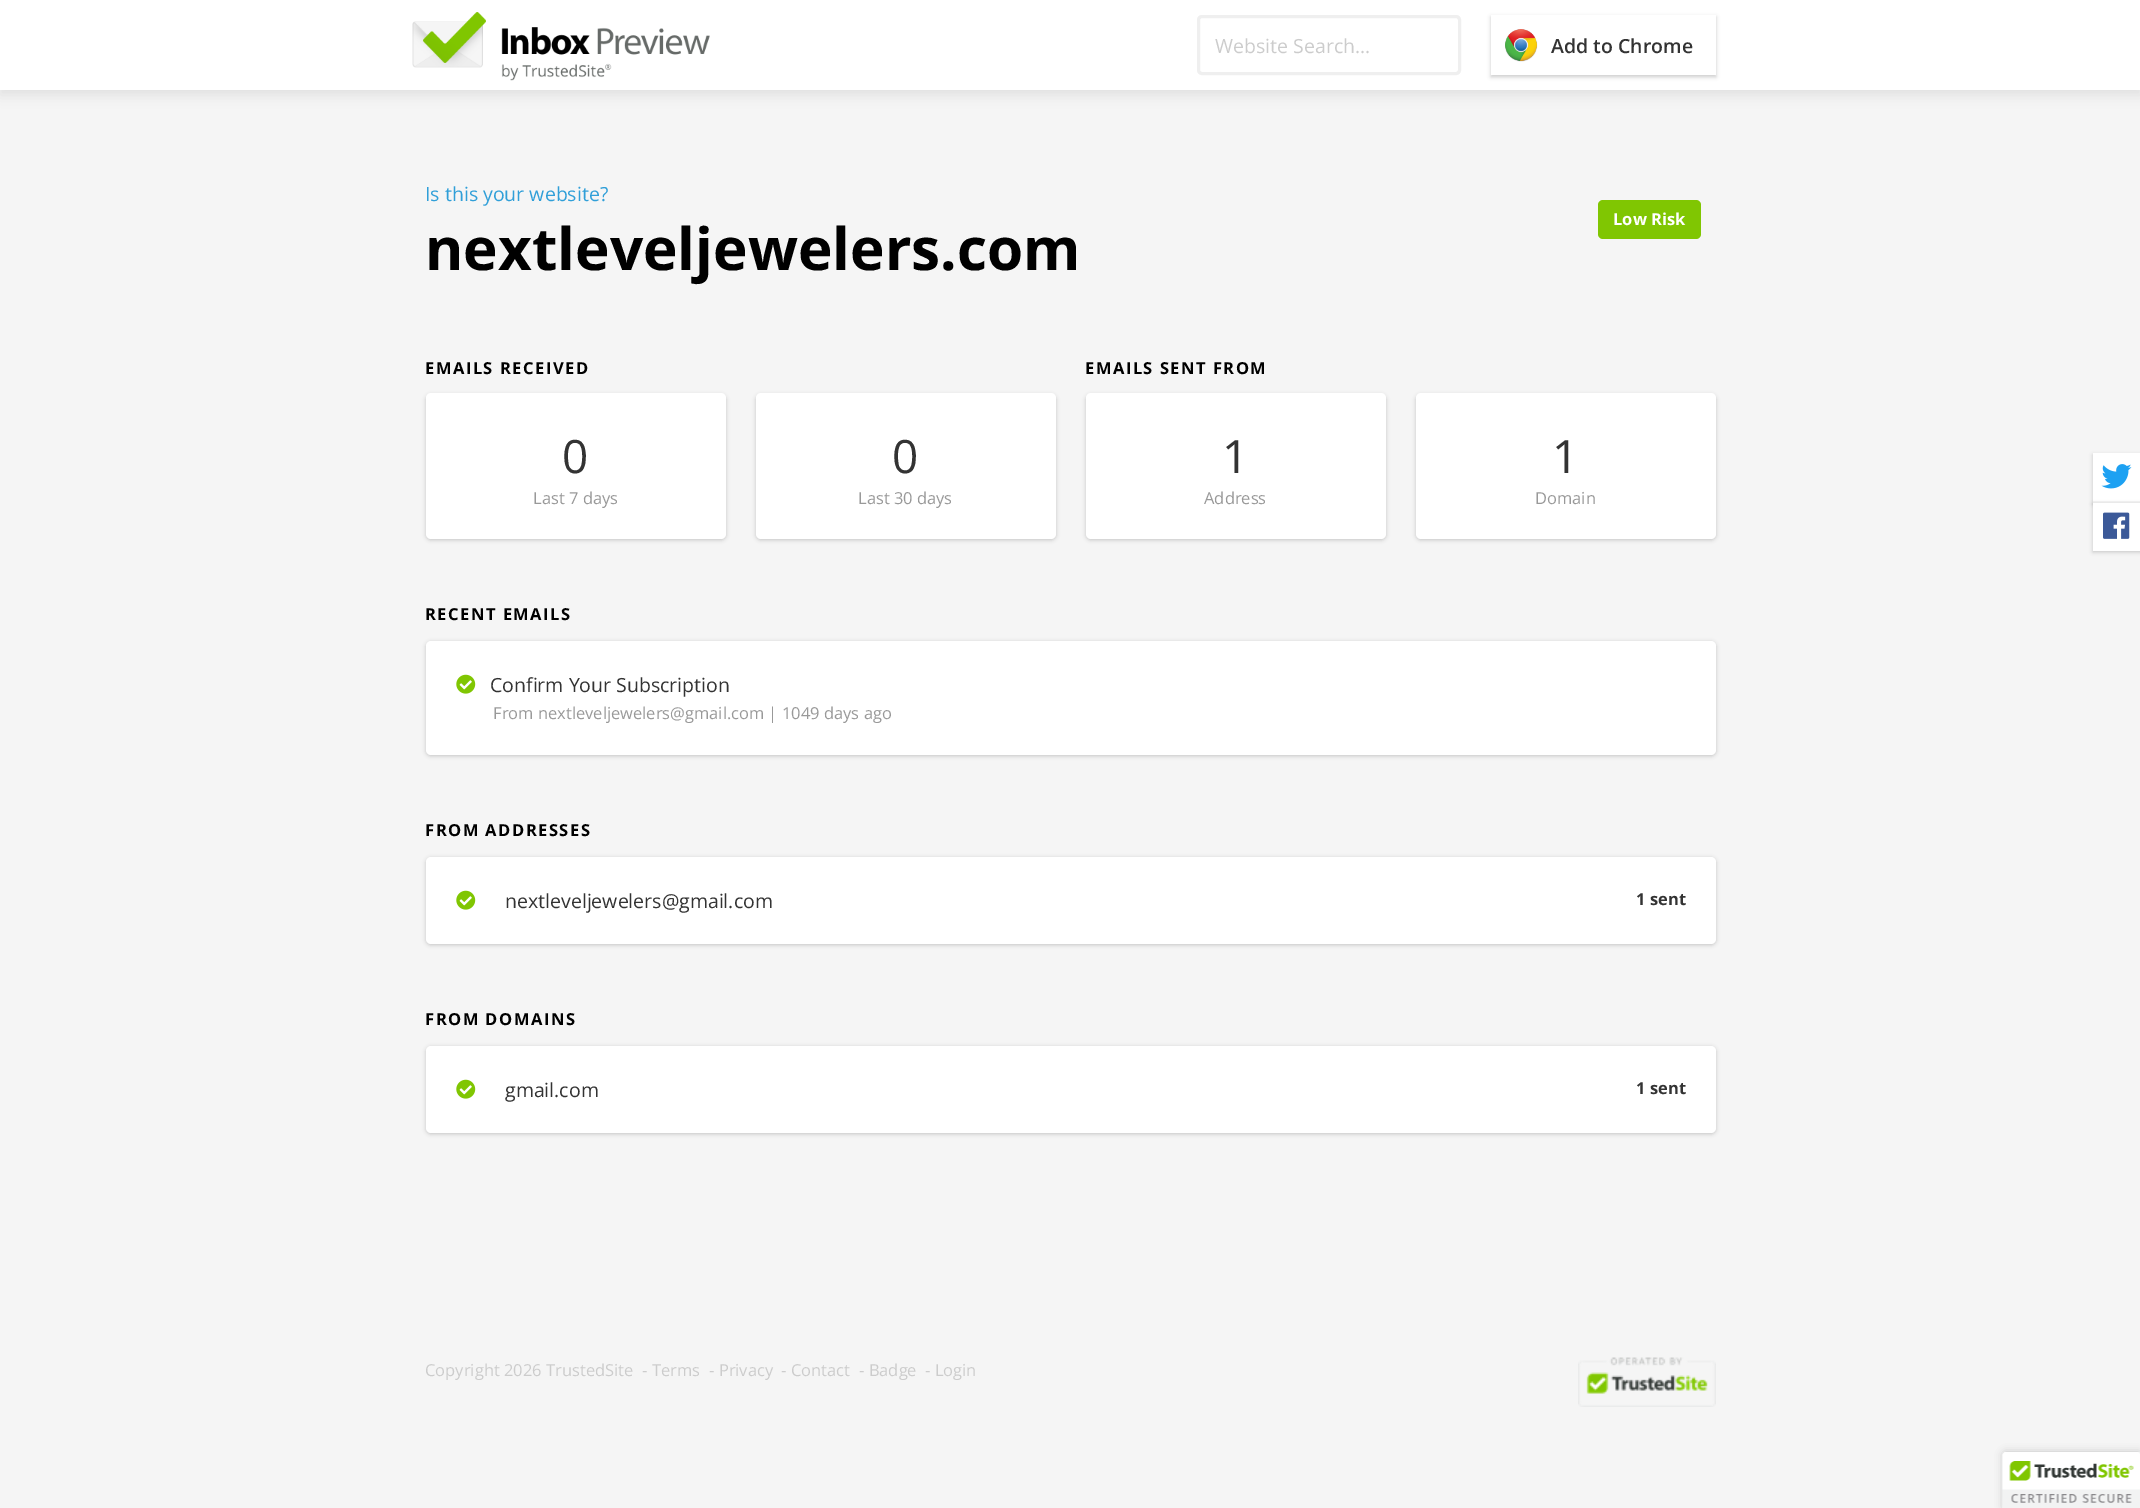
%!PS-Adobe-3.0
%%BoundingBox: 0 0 2140 1508
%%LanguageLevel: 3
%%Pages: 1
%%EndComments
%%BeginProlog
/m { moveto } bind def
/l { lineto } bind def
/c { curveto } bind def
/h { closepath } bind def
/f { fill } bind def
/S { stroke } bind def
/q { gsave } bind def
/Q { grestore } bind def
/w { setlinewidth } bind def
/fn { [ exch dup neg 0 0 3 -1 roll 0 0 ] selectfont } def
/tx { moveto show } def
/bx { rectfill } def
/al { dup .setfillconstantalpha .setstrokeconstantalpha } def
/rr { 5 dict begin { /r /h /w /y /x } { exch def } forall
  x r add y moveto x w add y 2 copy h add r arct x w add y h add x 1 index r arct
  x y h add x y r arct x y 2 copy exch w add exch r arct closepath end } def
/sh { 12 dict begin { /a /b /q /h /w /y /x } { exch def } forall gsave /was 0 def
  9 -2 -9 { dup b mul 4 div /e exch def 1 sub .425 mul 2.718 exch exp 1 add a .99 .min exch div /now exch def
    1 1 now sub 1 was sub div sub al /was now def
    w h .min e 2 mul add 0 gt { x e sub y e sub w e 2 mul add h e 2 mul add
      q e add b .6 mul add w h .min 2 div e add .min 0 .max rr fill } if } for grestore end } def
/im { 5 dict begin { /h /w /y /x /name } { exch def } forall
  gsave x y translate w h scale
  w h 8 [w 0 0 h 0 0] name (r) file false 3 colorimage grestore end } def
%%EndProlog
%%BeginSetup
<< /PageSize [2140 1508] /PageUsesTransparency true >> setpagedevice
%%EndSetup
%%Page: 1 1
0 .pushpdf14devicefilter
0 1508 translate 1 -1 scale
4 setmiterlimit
0.961 setgray
0 0 2140 1508 bx
0 setgray
0 5 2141 90 0 6 0.08 sh
1 setgray
0 0 2140 90 bx
(image0.raw) 412 12 298 69 im
0.937 setgray
3 w
1198.5 16.5 261 57 3.5 rr S
/OpenSans-Regular 19.5 fn
0.8 setgray
(Website Search...) 1215 53 tx
q
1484 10 m 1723 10 l 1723 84 l 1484 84 l h 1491 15 m 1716 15 l 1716 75 l 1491 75 l h eoclip newpath
0 setgray
1491 17 225 60 0 2 0.2 sh
Q
(image1.raw) 1505 29 33 33 im
/OpenSans-SemiBold 19.5 fn
0.2 setgray
(Add to Chrome) 1551 53 tx
/OpenSans-Regular 19.5 fn
0.188 0.624 0.847 setrgbcolor
(Is this your website?) 425 201 tx
0.502 0.776 0.008 setrgbcolor
1598 200 103 39 5 rr f
/OpenSans-Bold 16.5 fn
1 setgray
(Low Risk) 1613 225 tx
/OpenSans-Bold 58.5 fn
0 setgray
(nextleveljewelers.com) 425 270 tx
/OpenSans-Bold 16.5 fn
425 374 m 1.5 0 (EMAILS RECEIVED) ashow
426 395 300 145 5 2 0.2 sh
1 setgray
426 393 300 146 5 rr f
/OpenSans-Regular 46 fn
0.2 setgray
(0) 562 473 tx
/OpenSans-Regular 16.5 fn
0.6 setgray
(Last 7 days) 533 504 tx
0 setgray
756 395 300 145 5 2 0.2 sh
1 setgray
756 393 300 146 5 rr f
/OpenSans-Regular 46 fn
0.2 setgray
(0) 892 473 tx
/OpenSans-Regular 16.5 fn
0.6 setgray
(Last 30 days) 858 504 tx
/OpenSans-Bold 16.5 fn
0 setgray
1085 374 m 1.5 0 (EMAILS SENT FROM) ashow
1086 395 300 145 5 2 0.2 sh
1 setgray
1086 393 300 146 5 rr f
/OpenSans-Regular 46 fn
0.2 setgray
(1) 1222 473 tx
/OpenSans-Regular 16.5 fn
0.6 setgray
(Address) 1204 504 tx
0 setgray
1416 395 300 145 5 2 0.2 sh
1 setgray
1416 393 300 146 5 rr f
/OpenSans-Regular 46 fn
0.2 setgray
(1) 1552 473 tx
/OpenSans-Regular 16.5 fn
0.6 setgray
(Domain) 1535 504 tx
/OpenSans-Bold 16.5 fn
0 setgray
425 620 m 1.5 0 (RECENT EMAILS) ashow
426 642 1290 114 5 2 0.2 sh
1 setgray
426 641 1290 114 5 rr f
(image2.raw) 456 674 20 20 im
/OpenSans-Regular 19.5 fn
0.2 setgray
(Confirm Your Subscription) 490 692 tx
/OpenSans-Regular 16.5 fn
0.6 setgray
(From nextleveljewelers@gmail.com | 1049 days ago) 493 719 tx
/OpenSans-Bold 16.5 fn
0 setgray
425 836 m 1.5 0 (FROM ADDRESSES) ashow
426 858 1290 87 5 2 0.2 sh
1 setgray
426 857 1290 87 5 rr f
(image2.raw) 456 890 20 20 im
/OpenSans-Regular 19.5 fn
0.2 setgray
(nextleveljewelers@gmail.com) 505 908 tx
/OpenSans-Bold 16.5 fn
(1 sent) 1636 905 tx
0 setgray
425 1025 m 1.5 0 (FROM DOMAINS) ashow
426 1047 1290 87 5 2 0.2 sh
1 setgray
426 1046 1290 87 5 rr f
(image2.raw) 456 1079 20 20 im
/OpenSans-Regular 19.5 fn
0.2 setgray
(gmail.com) 505 1097 tx
/OpenSans-Bold 16.5 fn
(1 sent) 1636 1094 tx
0 setgray
2093 455 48 49 0 2 0.2 sh
1 setgray
2093 453 47 48 bx
0.961 setgray
2093 501 47 2 bx
(image3.raw) 2101 464 31 25 im
0 setgray
2093 504 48 48 0 2 0.2 sh
1 setgray
2093 503 47 48 bx
(image4.raw) 2103 512 27 27 im
/OpenSans-Regular 16.5 fn
0.8 setgray
(Copyright 2026 TrustedSite) 425 1376 tx
(- Terms) 642 1376 tx
(- Privacy) 709 1376 tx
(- Contact) 781 1376 tx
(- Badge) 859 1376 tx
(- Login) 925 1376 tx
(image5.raw) 1578 1357 138 50 im
0 setgray
2003 1452 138 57 3 4 0.2 sh
1 setgray
2006 1452 m 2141 1452 l 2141 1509 l 2003 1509 l 2003 1455 l 2003 1453.5 2004.5 1452 2006 1452 c h f
(image6.raw) 2002 1452 138 56 im
.poppdf14devicefilter showpage
%%EOF
